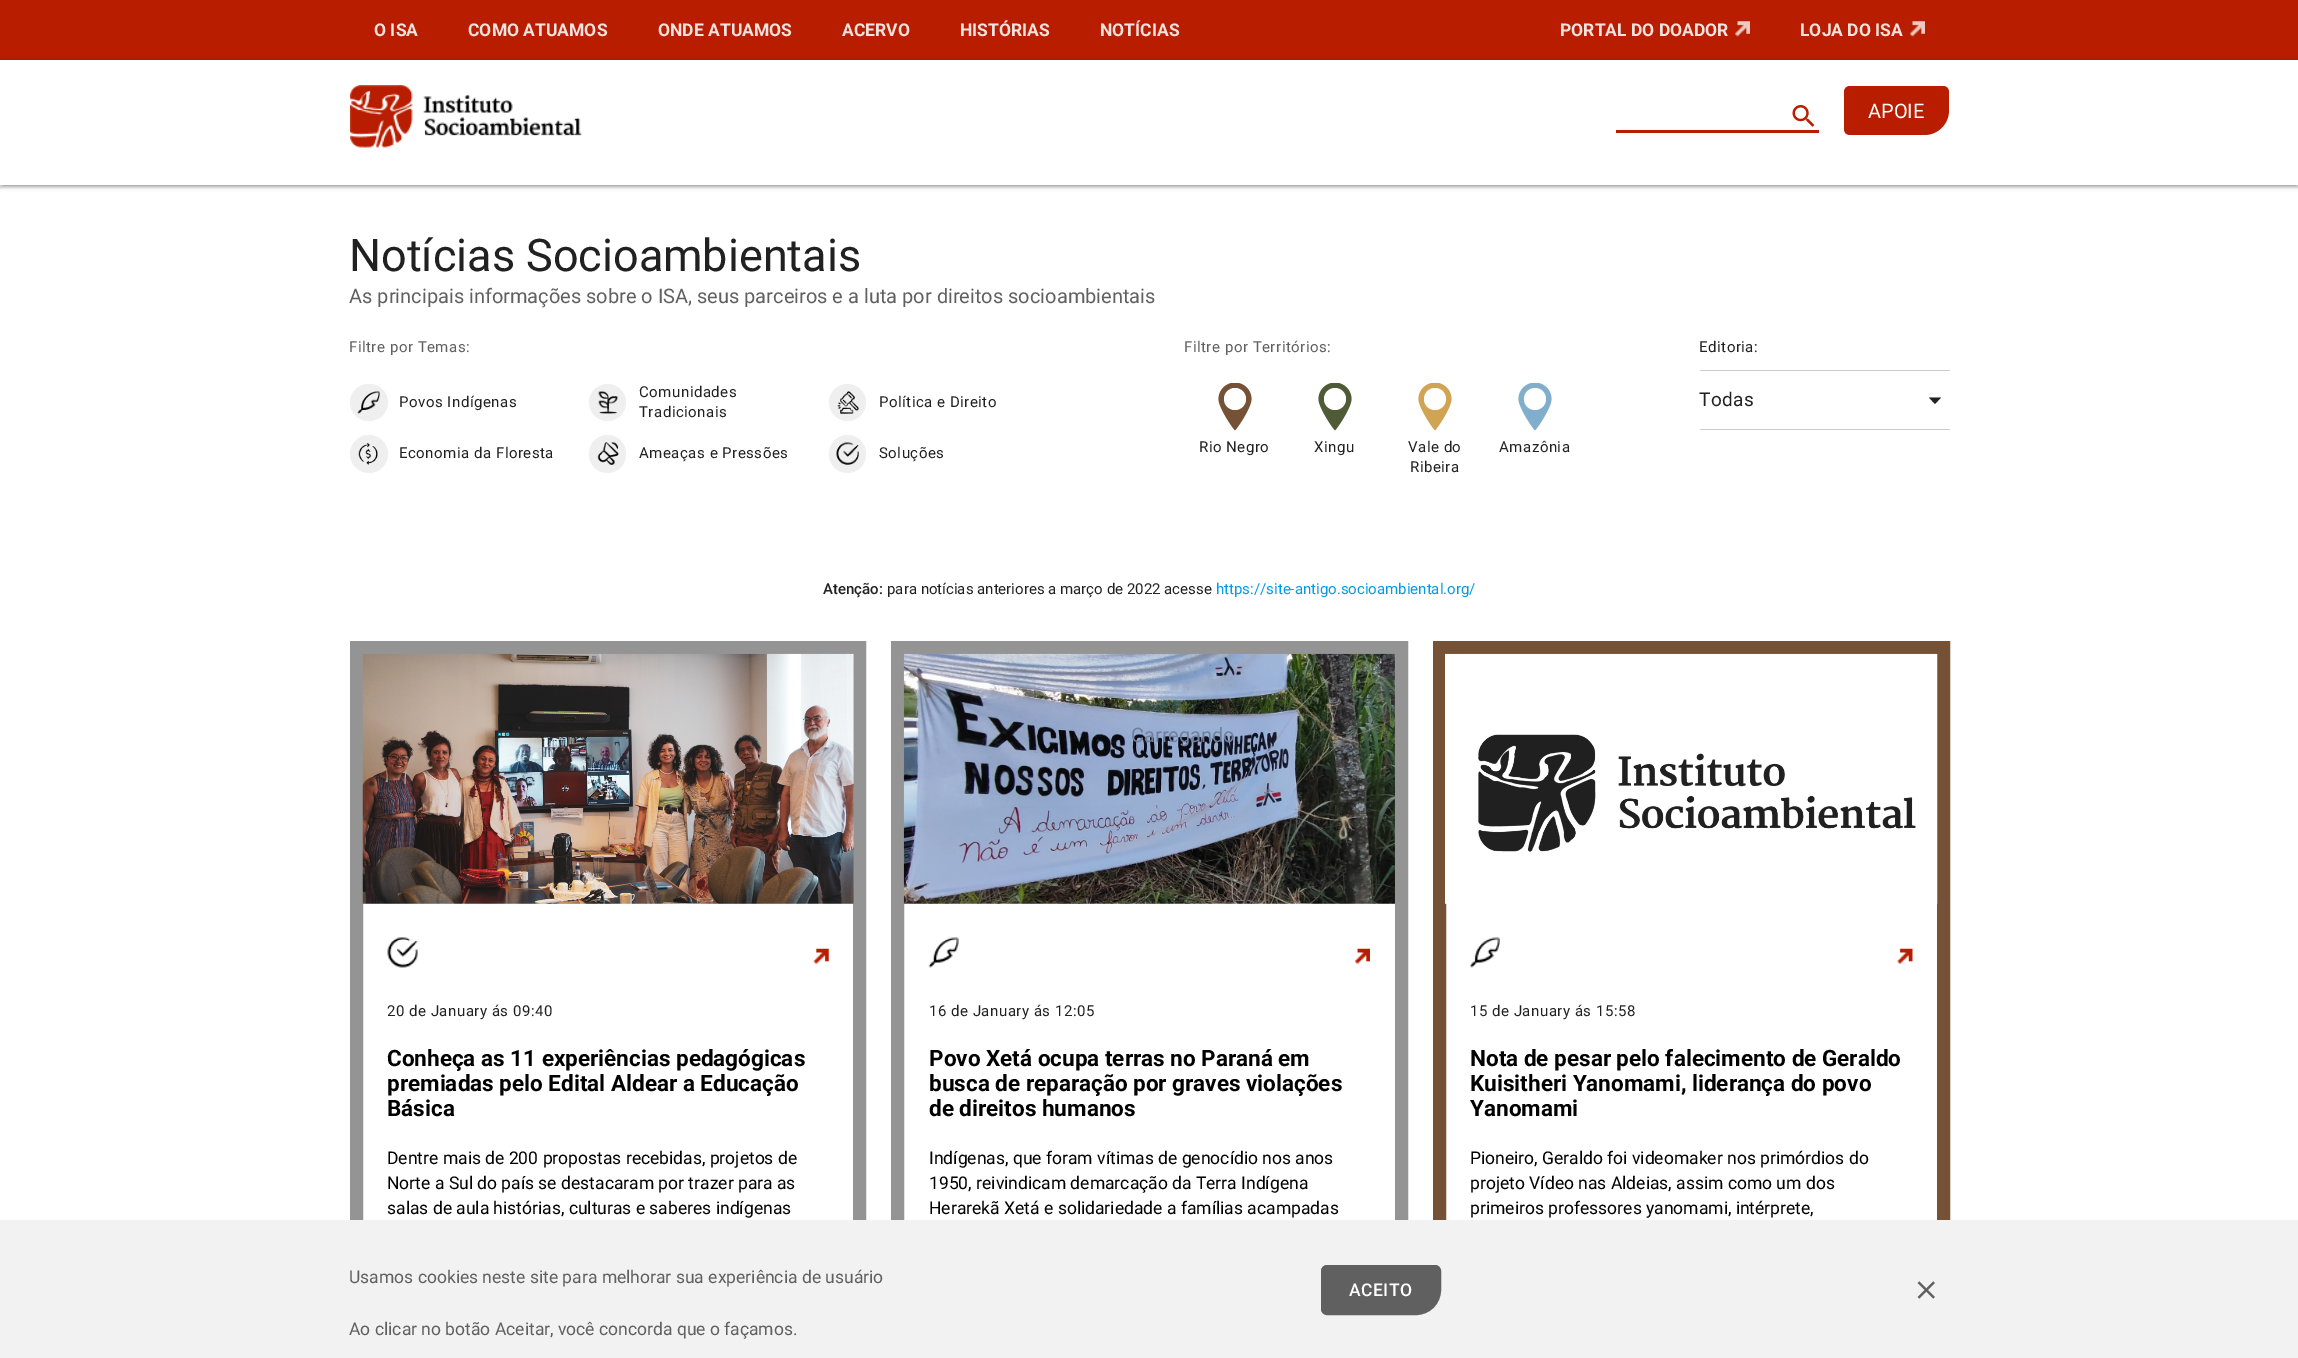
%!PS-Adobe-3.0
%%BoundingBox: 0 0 2298 1358
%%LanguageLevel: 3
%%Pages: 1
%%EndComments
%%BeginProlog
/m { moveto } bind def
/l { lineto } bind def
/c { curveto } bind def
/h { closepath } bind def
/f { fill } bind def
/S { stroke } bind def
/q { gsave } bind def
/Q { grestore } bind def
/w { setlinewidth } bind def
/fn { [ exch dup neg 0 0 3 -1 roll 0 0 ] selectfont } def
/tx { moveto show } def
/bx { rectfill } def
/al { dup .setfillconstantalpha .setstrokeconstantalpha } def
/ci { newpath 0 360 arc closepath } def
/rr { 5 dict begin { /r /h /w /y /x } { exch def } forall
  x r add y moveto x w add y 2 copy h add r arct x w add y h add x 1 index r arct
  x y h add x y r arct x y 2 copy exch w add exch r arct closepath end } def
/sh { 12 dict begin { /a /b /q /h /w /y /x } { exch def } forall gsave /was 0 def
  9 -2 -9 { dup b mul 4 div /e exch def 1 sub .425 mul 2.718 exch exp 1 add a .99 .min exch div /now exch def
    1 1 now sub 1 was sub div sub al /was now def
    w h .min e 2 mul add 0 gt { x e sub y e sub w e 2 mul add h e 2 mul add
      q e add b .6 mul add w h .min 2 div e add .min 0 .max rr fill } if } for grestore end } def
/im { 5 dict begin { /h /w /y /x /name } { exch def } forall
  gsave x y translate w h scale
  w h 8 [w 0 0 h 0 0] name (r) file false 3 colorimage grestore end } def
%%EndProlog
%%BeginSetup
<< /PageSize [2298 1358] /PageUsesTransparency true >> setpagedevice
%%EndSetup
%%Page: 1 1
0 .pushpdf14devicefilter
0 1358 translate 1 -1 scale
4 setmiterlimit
1 setgray
0 0 2298 1358 bx
0.722 0.114 0 setrgbcolor
0 0 2298 60 bx
/Roboto-Bold 17.5 fn
0.965 0.886 0.871 setrgbcolor
(O ISA) 374 36 tx
(COMO ATUAMOS) 468 36 tx
(ONDE ATUAMOS) 658 36 tx
(ACERVO) 842 36 tx
(HISTÓRIAS) 960 36 tx
(NOTÍCIAS) 1100 36 tx
(PORTAL DO DOADOR) 1560 36 tx
(image0.raw) 1735 21 15 16 im
(LOJA DO ISA) 1800 36 tx
(image0.raw) 1910 21 15 16 im
q
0 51 m 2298 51 l 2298 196 l 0 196 l h 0 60 m 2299 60 l 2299 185 l 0 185 l h eoclip newpath
0 setgray
0 61 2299 125 0 3 0.2 sh
Q
q
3 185 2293 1 rectclip
0 setgray
3 66 2293 120 0 0.5 0.12 sh
Q
q
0 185 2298 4 rectclip
0 setgray
0 63 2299 125 0 1 0.14 sh
Q
(image1.raw) 350 85 232 63 im
(image2.raw) 1792 105 23 22 im
0.722 0.114 0 setrgbcolor
1616 130 203 3 bx
1850 86 m 1943 86 l 1946.5 86 1949 88.5 1949 92 c 1949 110 l 1949 124 1938 135 1924 135 c 1850 135 l 1846.5 135 1844 132.5 1844 129 c 1844 92 l 1844 88.5 1846.5 86 1850 86 c h f
/Roboto-Regular 20 fn
1 setgray
(APOIE) 1868 118 tx
/Roboto-Regular 45 fn
0.129 setgray
(Notícias Socioambientais) 349 271 tx
/Roboto-Regular 20 fn
0.376 setgray
(As principais informações sobre o ISA, seus parceiros e a luta por direitos socioambientais) 349 303 tx
/Roboto-Regular 15 fn
349 352 m 0.5 0 (Filtre por Temas:) ashow
0.937 setgray
350 384 38 37 18.5 rr f
(image3.raw) 357 391 23 23 im
0.129 setgray
399 407 m 0.5 0 (Povos Indígenas) ashow
0.937 setgray
607.5 402.5 18.5 ci f
(image4.raw) 598 391 20 23 im
0.129 setgray
639 397 m 0.5 0 (Comunidades) ashow
639 417 m 0.5 0 (Tradicionais) ashow
0.937 setgray
847.5 402.5 18.5 ci f
(image5.raw) 837 391 22 23 im
0.129 setgray
879 407 m 0.5 0 (Política e Direito) ashow
0.937 setgray
369 454 19 ci f
(image6.raw) 358 442 20 23 im
0.129 setgray
399 458 m 0.5 0 (Economia da Floresta) ashow
0.937 setgray
589 435 37 38 18.5 rr f
(image7.raw) 597 442 22 23 im
0.129 setgray
639 458 m 0.5 0 (Ameaças e Pressões) ashow
0.937 setgray
829 435 37 38 18.5 rr f
(image8.raw) 836 442 23 23 im
0.129 setgray
879 458 m 0.5 0 (Soluções) ashow
0.376 setgray
1184 352 m 0.5 0 (Filtre por Territórios:) ashow
(image9.raw) 1218 383 34 48 im
1 setgray
1235 399 11 ci f
0.129 setgray
1199 452 m 0.5 0 (Rio Negro) ashow
(image10.raw) 1318 383 34 48 im
1 setgray
1335 399 11 ci f
0.129 setgray
1314 452 m 0.5 0 (Xingu) ashow
(image11.raw) 1418 383 34 48 im
1 setgray
1435 399 11 ci f
0.129 setgray
1408 452 m 0.5 0 (Vale do) ashow
1410 472 m 0.5 0 (Ribeira) ashow
(image12.raw) 1518 383 34 48 im
1 setgray
1535 399 11 ci f
0.129 setgray
1499 452 m 0.5 0 (Amazônia) ashow
1699 352 m 0.5 0 (Editoria:) ashow
0.8 setgray
1700 370 250 1 bx
1700 429 250 1 bx
/Roboto-Regular 19 fn
0.129 setgray
1699 406 m 0.5 0 (Todas) ashow
1929 397.5 m 1935 404 l 1941 397.5 l h f
/Roboto-Medium 15 fn
(Atenção:) 823 594 tx
/Roboto-Regular 15 fn
(para notícias anteriores a março de 2022 acesse) 887 594 tx
0.012 0.608 0.898 setrgbcolor
(https://site-antigo.socioambiental.org/) 1216 594 tx
0.58 setgray
13 w
356.5 647.5 503 630 rectstroke
(image13.raw) 362 653 492 251 im
(image14.raw) 387 937 31 31 im
(image15.raw) 813 948 16 16 im
0.129 setgray
387 1016 m 0.5 0 (20 de January ás 09:40) ashow
/Roboto-Bold 22.5 fn
0 setgray
(Conheça as 11 experiências pedagógicas) 387 1066 tx
(premiadas pelo Edital Aldear a Educação) 387 1091 tx
(Básica) 387 1116 tx
/Roboto-Regular 17.5 fn
(Dentre mais de 200 propostas recebidas, projetos de) 387 1164 tx
(Norte a Sul do país se destacaram por trazer para as) 387 1189 tx
(salas de aula histórias, culturas e saberes indígenas) 387 1214 tx
0.58 setgray
897.5 647.5 504 630 rectstroke
(image16.raw) 903 653 492 251 im
(image17.raw) 928 937 31 31 im
(image18.raw) 1355 948 15 16 im
/Roboto-Regular 15 fn
0.129 setgray
929 1016 m 0.5 0 (16 de January ás 12:05) ashow
/Roboto-Bold 22.5 fn
0 setgray
(Povo Xetá ocupa terras no Paraná em) 929 1066 tx
(busca de reparação por graves violações) 929 1091 tx
(de direitos humanos) 929 1116 tx
/Roboto-Regular 17.5 fn
(Indígenas, que foram vítimas de genocídio nos anos) 929 1164 tx
(1950, reivindicam demarcação da Terra Indígena) 929 1189 tx
(Herarekã Xetá e solidariedade a famílias acampadas) 929 1214 tx
0.459 0.322 0.208 setrgbcolor
1439.5 647.5 504 630 rectstroke
(image19.raw) 1445 653 493 251 im
(image20.raw) 1470 937 30 31 im
(image21.raw) 1897 948 16 16 im
/Roboto-Regular 15 fn
0.129 setgray
1470 1016 m 0.5 0 (15 de January ás 15:58) ashow
/Roboto-Bold 22.5 fn
0 setgray
(Nota de pesar pelo falecimento de Geraldo) 1470 1066 tx
(Kuisitheri Yanomami, liderança do povo) 1470 1091 tx
(Yanomami) 1470 1116 tx
/Roboto-Regular 17.5 fn
(Pioneiro, Geraldo foi videomaker nos primórdios do) 1470 1164 tx
(projeto Vídeo nas Aldeias, assim como um dos) 1470 1189 tx
(primeiros professores yanomami, intérprete,) 1470 1214 tx
/Roboto-Regular 20 fn
0.439 0.502 0.616 setrgbcolor
(Carregando) 1131 742 tx
0.949 setgray
0 1220 2298 138 bx
/Roboto-Regular 17.5 fn
0.376 setgray
(Usamos cookies neste site para melhorar sua experiência de usuário) 349 1283 tx
(Ao clicar no botão Aceitar, você concorda que o façamos.) 349 1335 tx
1327 1266.5 m 1435 1266.5 l 1437.5 1266.5 1439.5 1268.5 1439.5 1271 c 1439.5 1290 l 1439.5 1303 1429 1313.5 1416 1313.5 c 1327 1313.5 l 1324.5 1313.5 1322.5 1311.5 1322.5 1309 c 1322.5 1271 l 1322.5 1268.5 1324.5 1266.5 1327 1266.5 c h q f Q
3 w
S
/Roboto-Medium 17.5 fn
1 setgray
1349 1296 m 0.5 0 (ACEITO) ashow
(image22.raw) 1917 1281 18 18 im
.poppdf14devicefilter showpage
%%EOF
